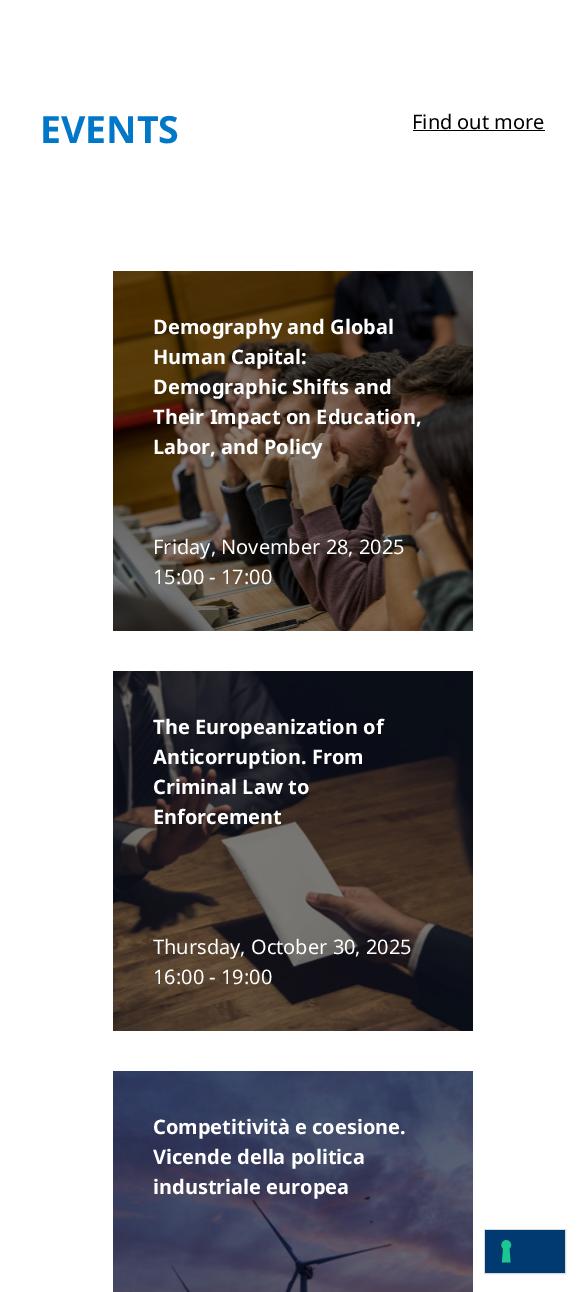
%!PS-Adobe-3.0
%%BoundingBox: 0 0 585 1292
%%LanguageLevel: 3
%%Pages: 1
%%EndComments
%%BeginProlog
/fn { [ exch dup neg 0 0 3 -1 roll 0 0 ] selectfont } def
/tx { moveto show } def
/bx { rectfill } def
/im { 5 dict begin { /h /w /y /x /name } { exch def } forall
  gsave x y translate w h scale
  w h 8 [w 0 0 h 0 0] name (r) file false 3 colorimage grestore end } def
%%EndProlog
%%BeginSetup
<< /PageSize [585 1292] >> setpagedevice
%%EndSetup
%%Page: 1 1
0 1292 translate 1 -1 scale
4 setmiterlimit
1 setgray
0 0 585 1292 bx
/NotoSans-Bold 37.5 fn
0 0.467 0.784 setrgbcolor
(EVENTS) 40 143 tx
/NotoSans-Regular 20 fn
0 setgray
(Find out more) 412 129 tx
413 130 132 1 bx
(image0.raw) 113 271 360 360 im
/NotoSans-Bold 20 fn
1 setgray
(Demography and Global) 153 334 tx
(Human Capital:) 153 364 tx
(Demographic Shifts and) 153 394 tx
(Their Impact on Education,) 153 424 tx
(Labor, and Policy) 153 454 tx
/NotoSans-Regular 20 fn
(Friday, November 28, 2025) 153 554 tx
(15:00 - 17:00) 153 584 tx
(image1.raw) 113 671 360 360 im
/NotoSans-Bold 20 fn
(The Europeanization of) 153 734 tx
(Anticorruption. From) 153 764 tx
(Criminal Law to) 153 794 tx
(Enforcement) 153 824 tx
/NotoSans-Regular 20 fn
(Thursday, October 30, 2025) 153 954 tx
(16:00 - 19:00) 153 984 tx
(image2.raw) 113 1071 360 221 im
/NotoSans-Bold 20 fn
(Competitività e coesione.) 153 1134 tx
(Vicende della politica) 153 1164 tx
(industriale europea) 153 1194 tx
0.851 setgray
484.5 1229.5 81 44 rectstroke
0 0.227 0.439 setrgbcolor
485 1230 80 43 bx
(image3.raw) 501 1240 11 23 im
showpage
%%EOF
